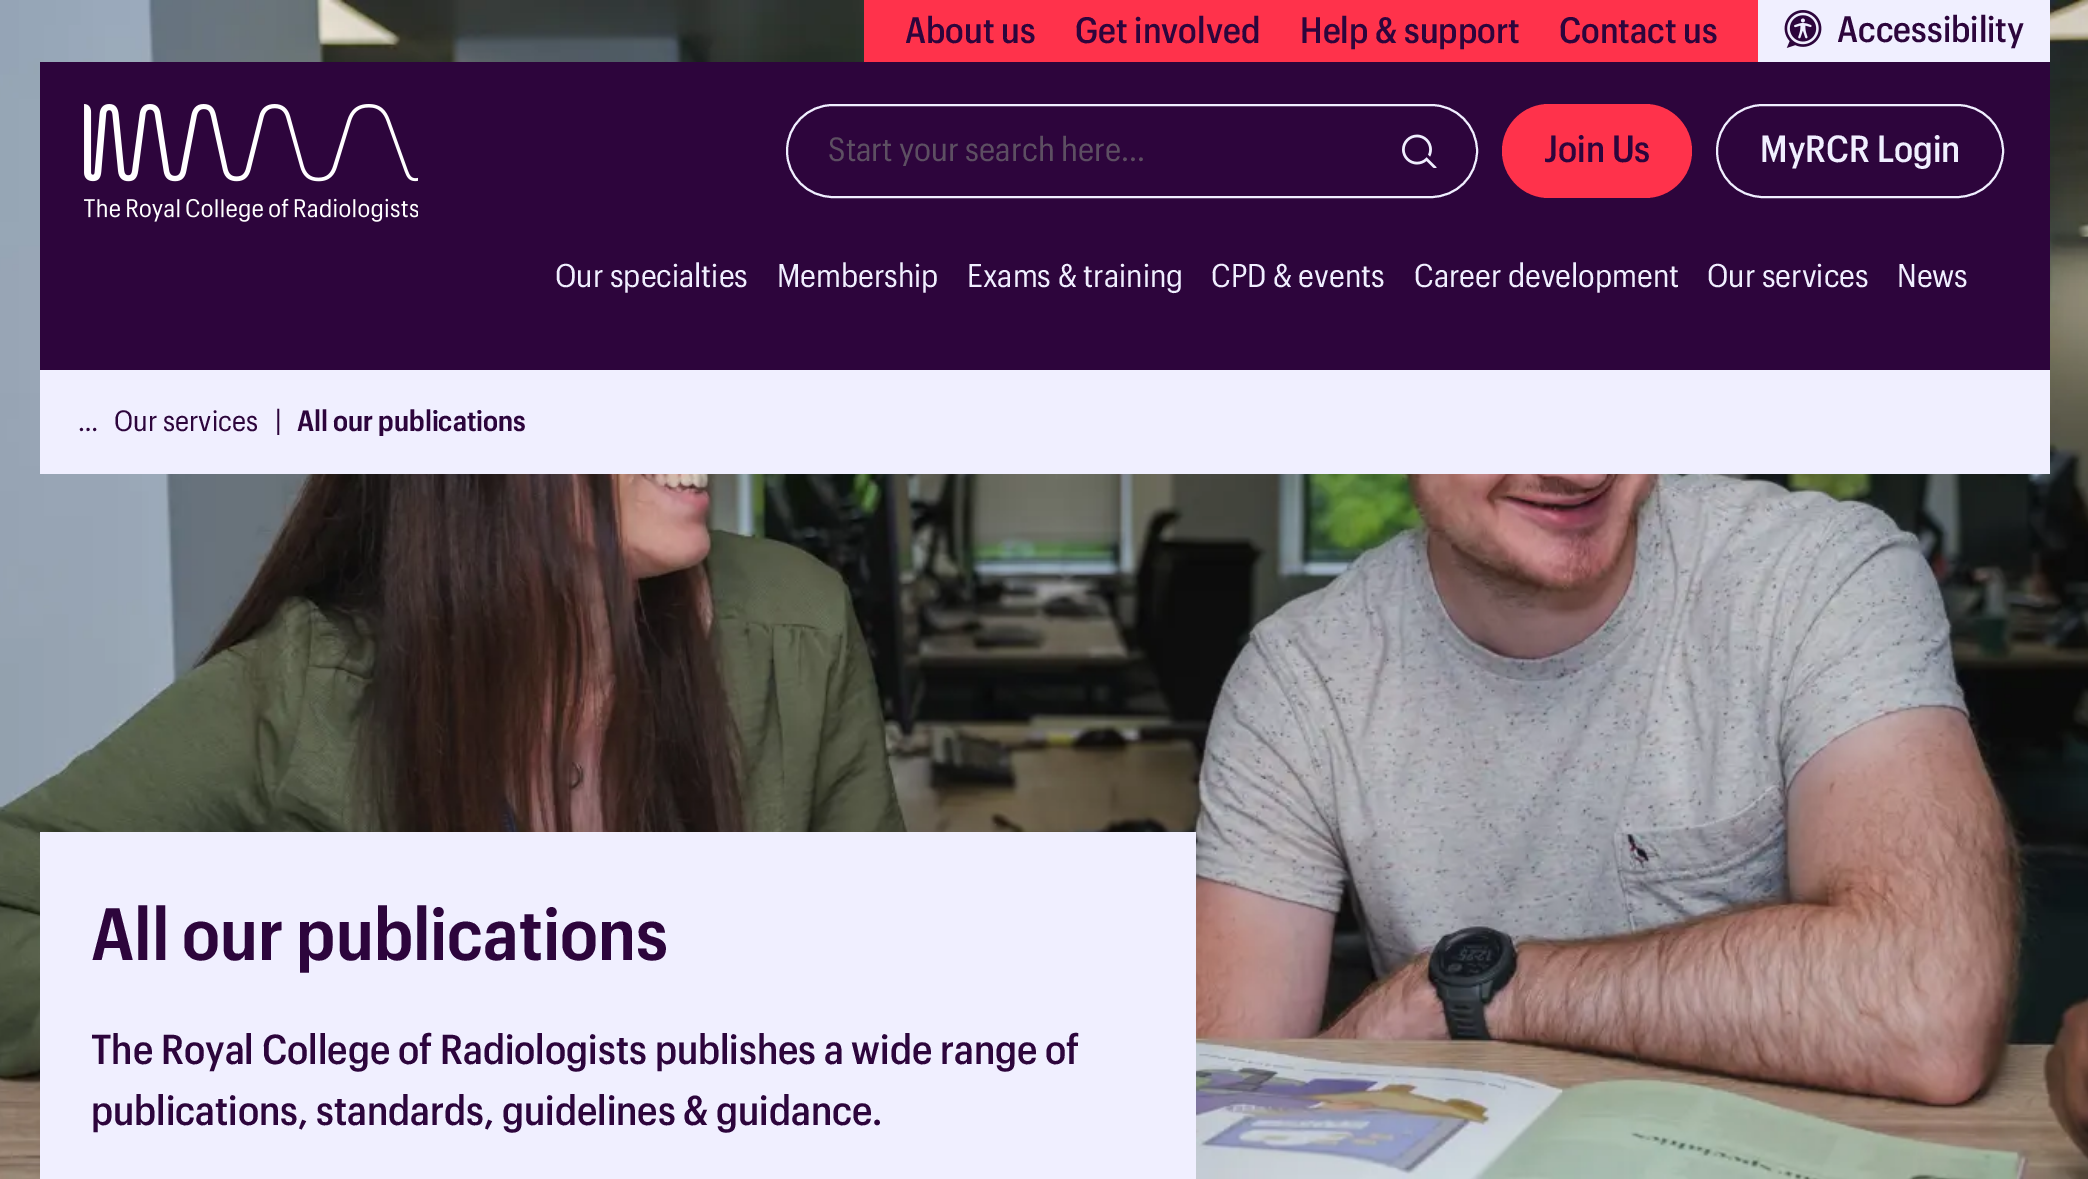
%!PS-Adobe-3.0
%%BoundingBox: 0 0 2088 1179
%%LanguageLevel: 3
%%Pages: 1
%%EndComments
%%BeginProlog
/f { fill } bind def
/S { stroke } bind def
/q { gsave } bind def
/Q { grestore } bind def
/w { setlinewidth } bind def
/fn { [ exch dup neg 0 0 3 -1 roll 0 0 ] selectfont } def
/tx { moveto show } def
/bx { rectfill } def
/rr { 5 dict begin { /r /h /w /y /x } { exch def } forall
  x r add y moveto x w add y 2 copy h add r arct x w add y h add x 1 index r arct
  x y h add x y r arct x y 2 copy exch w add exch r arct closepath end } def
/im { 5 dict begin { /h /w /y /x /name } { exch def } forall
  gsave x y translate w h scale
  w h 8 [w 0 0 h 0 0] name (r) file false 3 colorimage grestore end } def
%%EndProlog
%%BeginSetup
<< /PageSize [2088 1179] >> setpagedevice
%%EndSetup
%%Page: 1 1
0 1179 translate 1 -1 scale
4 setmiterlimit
1 setgray
0 0 2088 1179 bx
(image3.raw) 0 0 2088 1179 im
1 0.196 0.294 setrgbcolor
864 0 894 62 bx
/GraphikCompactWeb-Medium 36 fn
0.176 0.02 0.235 setrgbcolor
(About us) 905 43 tx
(Get involved) 1075 43 tx
(Help & support) 1300 43 tx
(Contact us) 1559 43 tx
0.941 0.937 1 setrgbcolor
1758 0 292 62 bx
(image0.raw) 1784 10 38 38 im
0.176 0.02 0.235 setrgbcolor
(Accessibility) 1837 42 tx
40 62 2010 308 bx
(image1.raw) 84 104 334 118 im
0.941 0.937 1 setrgbcolor
2 w
787 105 690 92 46 rr S
q
828 128 544 38 rectclip
/GraphikCompactWeb-Regular 33 fn
0.365 0.31 0.384 setrgbcolor
(Start your search here...) 828 161 tx
Q
(image2.raw) 1402 134 35 34 im
1 0.196 0.294 setrgbcolor
1502 104 190 94 47 rr f
/GraphikCompactWeb-Medium 37 fn
0.176 0.02 0.235 setrgbcolor
(Join Us) 1544 162 tx
0.941 0.937 1 setrgbcolor
1717 105 286 92 46 rr S
(MyRCR Login) 1760 162 tx
/GraphikCompactWeb-Regular 32.25 fn
(Our specialties) 555 287 tx
(Membership) 777 287 tx
(Exams & training) 967 287 tx
(CPD & events) 1211 287 tx
(Career development) 1414 287 tx
(Our services) 1707 287 tx
(News) 1897 287 tx
40 370 2010 104 bx
/GraphikCompactWeb-Regular 28.75 fn
0.176 0.02 0.235 setrgbcolor
(…) 78 431 tx
(Our services) 114 431 tx
(|) 275 431 tx
/GraphikCompactWeb-SemiBold 28.75 fn
(All our publications) 297 431 tx
0.941 0.937 1 setrgbcolor
40 832 1156 347 bx
/GraphikCompactWeb-SemiBold 72.5 fn
0.176 0.02 0.235 setrgbcolor
(All our publications) 91 960 tx
/GraphikCompactWeb-Medium 41 fn
(The Royal College of Radiologists publishes a wide range of) 91 1064 tx
(publications, standards, guidelines & guidance.) 91 1125 tx
showpage
%%EOF
